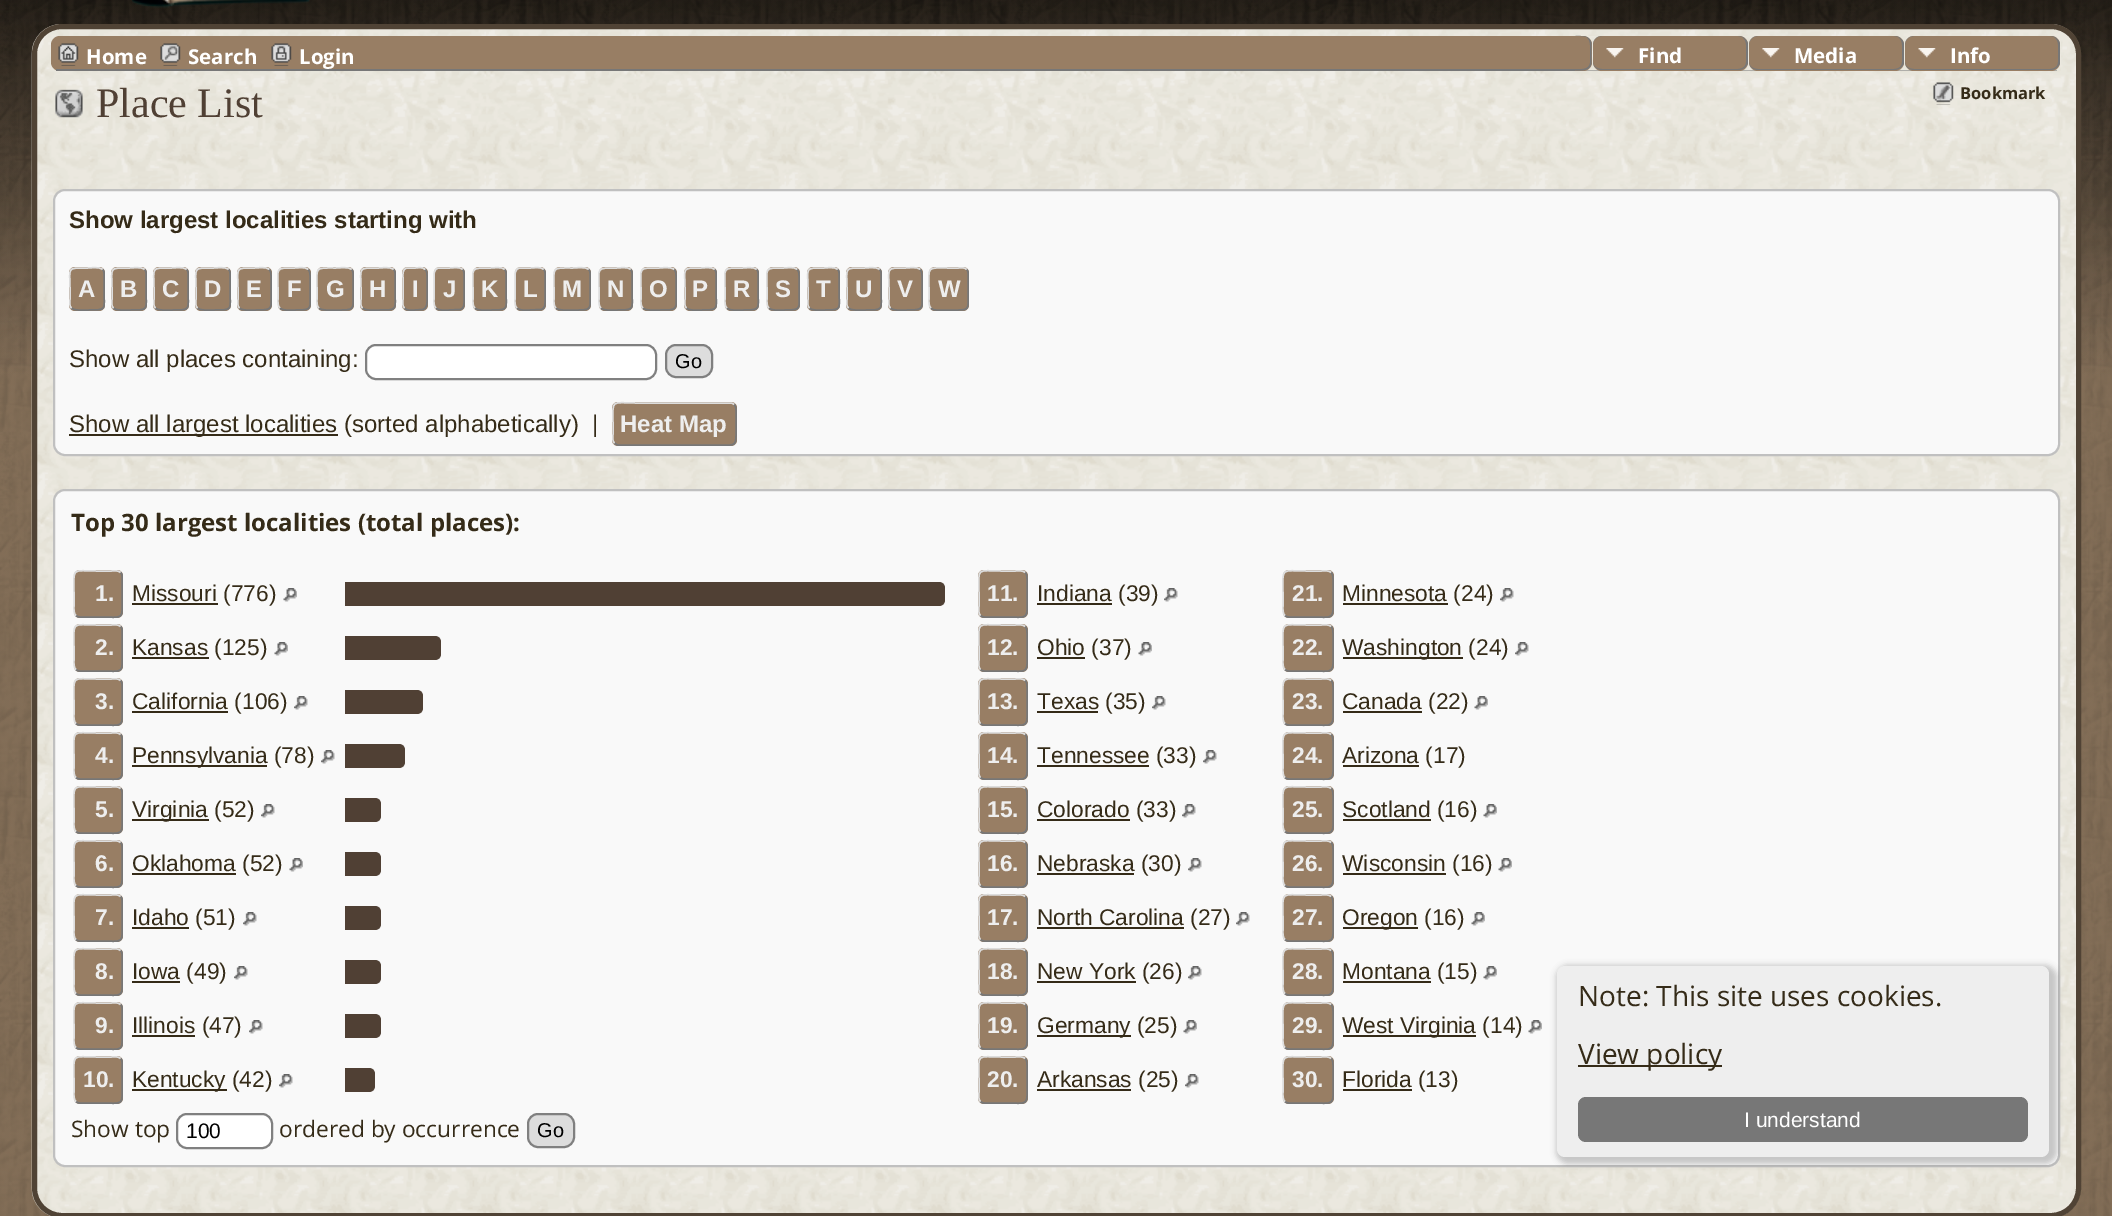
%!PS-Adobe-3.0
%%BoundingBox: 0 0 2112 1216
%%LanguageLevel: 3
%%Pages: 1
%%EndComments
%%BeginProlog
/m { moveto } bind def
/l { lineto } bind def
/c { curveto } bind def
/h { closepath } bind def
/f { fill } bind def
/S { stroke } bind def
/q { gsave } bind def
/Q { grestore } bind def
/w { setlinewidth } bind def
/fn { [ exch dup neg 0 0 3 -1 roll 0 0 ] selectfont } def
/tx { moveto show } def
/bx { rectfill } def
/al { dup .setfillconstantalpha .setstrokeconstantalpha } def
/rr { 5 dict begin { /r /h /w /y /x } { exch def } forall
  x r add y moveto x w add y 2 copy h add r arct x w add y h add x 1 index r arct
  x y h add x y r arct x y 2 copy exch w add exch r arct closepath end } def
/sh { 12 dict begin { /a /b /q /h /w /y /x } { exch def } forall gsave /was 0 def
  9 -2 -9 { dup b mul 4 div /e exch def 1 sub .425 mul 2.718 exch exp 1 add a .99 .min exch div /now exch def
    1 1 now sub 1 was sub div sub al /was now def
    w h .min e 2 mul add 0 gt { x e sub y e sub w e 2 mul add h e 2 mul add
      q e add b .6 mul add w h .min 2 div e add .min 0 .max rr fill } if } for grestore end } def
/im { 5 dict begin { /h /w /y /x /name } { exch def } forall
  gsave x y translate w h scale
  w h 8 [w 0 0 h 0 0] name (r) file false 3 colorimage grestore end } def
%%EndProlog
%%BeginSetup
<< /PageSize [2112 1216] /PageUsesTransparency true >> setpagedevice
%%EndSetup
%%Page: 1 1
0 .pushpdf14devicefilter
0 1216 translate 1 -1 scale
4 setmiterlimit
1 setgray
0 0 2112 1216 bx
(image0.raw) 0 0 2112 1216 im
(image1.raw) 132 0 178 8 im
(image2.raw) 31 24 2050 1192 im
0.314 0.263 0.208 setrgbcolor
5 w
34.5 26.5 2044 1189 27.5 rr S
0.596 0.494 0.392 setrgbcolor
51 36 2010 35 9 rr f
0.467 setgray
56 69 2001 2 bx
(image3.raw) 58 43 21 23 im
/OpenSans-Bold 20.5 fn
1 setgray
(Home) 86 64 tx
(image4.raw) 160 43 21 23 im
(Search) 188 64 tx
(image5.raw) 271 43 21 23 im
(Login) 299 64 tx
(image6.raw) 1583 36 478 35 im
0.596 0.494 0.392 setrgbcolor
1575 36 m 1583 36 l 1588 36 1592 40 1592 45 c 1592 62 l 1592 67 1588 71 1583 71 c 1575 71 l h f
0.467 setgray
1575 36 m 1581.5 36 1589.5 35 1591.5 43 c 1591.5 63.5 l 1589.5 71.5 1581.5 70.5 1575 70.5 c h 1575 36 m 1584 36 l 1591.5 38 1590 47.5 1590 53 c 1590 63 l 1588.5 70.5 1580.5 69 1575 69 c h eofill
0.596 0.494 0.392 setrgbcolor
1593 36 155 35 9 rr f
(image7.raw) 1606 48 18 10 im
0.467 setgray
1602 36 m 1738 36 l 1743 36 1748 40 1748 45 c 1748 62 l 1748 66 1743 70 1738 70 c 1602 70 l 1597 70 1593 66 1593 62 c 1593 45 l 1593 40 1597 36 1602 36 c h 1602 36 m 1738 36 l 1743 36 1746 40 1746 45 c 1746 62 l 1746 66 1743 69 1738 69 c 1602 69 l 1597 69 1593 66 1593 62 c 1593 45 l 1593 40 1597 36 1602 36 c h eofill
1 setgray
(Find) 1638 63 tx
0.596 0.494 0.392 setrgbcolor
1749 36 155 35 9 rr f
(image7.raw) 1762 48 18 10 im
0.467 setgray
1758 36 m 1894 36 l 1899 36 1904 40 1904 45 c 1904 62 l 1904 66 1899 70 1894 70 c 1758 70 l 1753 70 1749 66 1749 62 c 1749 45 l 1749 40 1753 36 1758 36 c h 1758 36 m 1894 36 l 1899 36 1902 40 1902 45 c 1902 62 l 1902 66 1899 69 1894 69 c 1758 69 l 1753 69 1749 66 1749 62 c 1749 45 l 1749 40 1753 36 1758 36 c h eofill
1 setgray
(Media) 1794 63 tx
0.596 0.494 0.392 setrgbcolor
1905 36 155 35 9 rr f
(image8.raw) 1918 48 18 10 im
0.467 setgray
1914 36 m 2050 36 l 2055 36 2060 40 2060 45 c 2060 62 l 2060 66 2055 70 2050 70 c 1914 70 l 1909 70 1905 66 1905 62 c 1905 45 l 1905 40 1909 36 1914 36 c h 1914 36 m 2050 36 l 2055 36 2058 40 2058 45 c 2058 62 l 2058 66 2055 69 2050 69 c 1914 69 l 1909 69 1905 66 1905 62 c 1905 45 l 1905 40 1909 36 1914 36 c h eofill
1 setgray
(Info) 1950 63 tx
(image9.raw) 55 89 28 29 im
/LiberationSerif-Regular 42 fn
0.314 0.251 0.204 setrgbcolor
(Place List) 96 117 tx
(image10.raw) 1933 82 21 23 im
/OpenSans-Bold 16.5 fn
0.208 0.169 0.094 setrgbcolor
(Bookmark) 1960 99 tx
0.976 setgray
54 190 2005 265 11 rr q f Q
0.753 setgray
2 w
S
/LiberationSans-Bold 24 fn
0.208 0.169 0.094 setrgbcolor
(Show largest localities starting with) 69 228 tx
0.596 0.494 0.392 setrgbcolor
69 267 36 44 6 rr f
0.467 setgray
1.5 w
102.5 269.5 m 105 271.5 104 275.5 104 278 c 104 289 l 104 310.5 108 310 87 310 c 83.5 310 74.5 311 71.5 308 c S
0.867 setgray
71.5 308 m 69 306 70 302 70 299 c 70 289 l 70 267 66 268 87 268 c 90.5 268 99.5 266.5 102.5 269.5 c S
0.933 setgray
(A) 78 297 tx
0.596 0.494 0.392 setrgbcolor
111 267 36 44 6 rr f
0.467 setgray
144.5 269.5 m 147 271.5 146 275.5 146 278 c 146 289 l 146 310.5 150 310 129 310 c 125.5 310 116.5 311 113.5 308 c S
0.867 setgray
113.5 308 m 111 306 112 302 112 299 c 112 289 l 112 267 108 268 129 268 c 132.5 268 141.5 266.5 144.5 269.5 c S
0.933 setgray
(B) 120 297 tx
0.596 0.494 0.392 setrgbcolor
153 267 36 44 6 rr f
0.467 setgray
186.5 269.5 m 189 271.5 188 275.5 188 278 c 188 289 l 188 310.5 192 310 171 310 c 167.5 310 158.5 311 155.5 308 c S
0.867 setgray
155.5 308 m 153 306 154 302 154 299 c 154 289 l 154 267 150 268 171 268 c 174.5 268 183.5 266.5 186.5 269.5 c S
0.933 setgray
(C) 162 297 tx
0.596 0.494 0.392 setrgbcolor
195 267 36 44 6 rr f
0.467 setgray
228.5 269.5 m 231 271.5 230 275.5 230 278 c 230 289 l 230 310.5 234 310 213 310 c 209.5 310 200.5 311 197.5 308 c S
0.867 setgray
197.5 308 m 195 306 196 302 196 299 c 196 289 l 196 267 192 268 213 268 c 216.5 268 225.5 266.5 228.5 269.5 c S
0.933 setgray
(D) 204 297 tx
0.596 0.494 0.392 setrgbcolor
237 267 35 44 6 rr f
0.467 setgray
269 269.5 m 271.5 271.5 271 275.5 271 278 c 271 289 l 271 310 274.5 310 254 310 c 250.5 310 242 311 239.5 308 c S
0.867 setgray
239.5 308 m 237 306 238 302 238 299 c 238 289 l 238 267.5 234 268 254 268 c 258 268 266.5 266.5 269 269.5 c S
0.933 setgray
(E) 246 297 tx
0.596 0.494 0.392 setrgbcolor
278 267 33 44 6 rr f
0.467 setgray
308 269.5 m 310.5 271.5 310 275.5 310 278 c 310 289 l 310 310 313.5 310 294 310 c 290.5 310 282.5 311 280 308 c S
0.867 setgray
280 308 m 277.5 306 278 302 278 299 c 278 289 l 278 267.5 274.5 268 294 268 c 297.5 268 305.5 266.5 308 269.5 c S
0.933 setgray
(F) 287 297 tx
0.596 0.494 0.392 setrgbcolor
317 267 37 44 6 rr f
0.467 setgray
351.5 269.5 m 354 271.5 353 275.5 353 278 c 353 289 l 353 311 356.5 310 335 310 c 331.5 310 321.5 311 319 308 c S
0.867 setgray
319 308 m 316.5 306 317 302 317 299 c 317 289 l 317 266.5 314 268 335 268 c 339 268 349 266.5 351.5 269.5 c S
0.933 setgray
(G) 326 297 tx
0.596 0.494 0.392 setrgbcolor
360 267 36 44 6 rr f
0.467 setgray
393.5 269.5 m 396 271.5 395 275.5 395 278 c 395 289 l 395 310.5 399 310 378 310 c 374.5 310 365.5 311 362.5 308 c S
0.867 setgray
362.5 308 m 360 306 361 302 361 299 c 361 289 l 361 267 357 268 378 268 c 381.5 268 390.5 266.5 393.5 269.5 c S
0.933 setgray
(H) 369 297 tx
0.596 0.494 0.392 setrgbcolor
402 267 26 44 6 rr f
0.467 setgray
425 269.5 m 427.5 271.5 427 275.5 427 278 c 427 299 l 427 303 427.5 308.5 422.5 309.5 c 415 310 l 411.5 310 407 311 404.5 308 c S
0.867 setgray
404.5 308 m 402 306 403 302 403 299 c 403 278 l 403 274.5 402 269 407 268 c 415 268 l 418 268 422.5 266.5 425 269.5 c S
0.933 setgray
(I) 412 297 tx
0.596 0.494 0.392 setrgbcolor
434 267 31 44 6 rr f
0.467 setgray
462.5 269.5 m 465 271.5 464 275.5 464 278 c 464 299 l 464 303 465 308.5 460 309.5 c 449 310 l 445.5 310 438.5 311 436 308 c S
0.867 setgray
436 308 m 433.5 306 434 302 434 299 c 434 278 l 434 274.5 433.5 269 438.5 268 c 449 268 l 453 268 460 266.5 462.5 269.5 c S
0.933 setgray
(J) 443 297 tx
0.596 0.494 0.392 setrgbcolor
473 267 34 44 6 rr f
0.467 setgray
504.5 269.5 m 507 271.5 506 275.5 506 278 c 506 289 l 506 310 510 310 490 310 c 486 310 477.5 311 475 308 c S
0.867 setgray
475 308 m 472.5 306 473 302 473 299 c 473 289 l 473 267.5 469.5 268 490 268 c 493.5 268 502 266.5 504.5 269.5 c S
0.933 setgray
(K) 481 297 tx
0.596 0.494 0.392 setrgbcolor
515 267 31 44 6 rr f
0.467 setgray
543.5 269.5 m 546 271.5 545 275.5 545 278 c 545 299 l 545 303 546 308.5 541 309.5 c 530 310 l 526.5 310 519.5 311 517 308 c S
0.867 setgray
517 308 m 514.5 306 515 302 515 299 c 515 278 l 515 274.5 514.5 269 519.5 268 c 530 268 l 534 268 541 266.5 543.5 269.5 c S
0.933 setgray
(L) 523 297 tx
0.596 0.494 0.392 setrgbcolor
554 267 37 44 6 rr f
0.467 setgray
588.5 269.5 m 591 271.5 590 275.5 590 278 c 590 289 l 590 311 593.5 310 572 310 c 568.5 310 558.5 311 556 308 c S
0.867 setgray
556 308 m 553.5 306 554 302 554 299 c 554 289 l 554 266.5 551 268 572 268 c 576 268 586 266.5 588.5 269.5 c S
0.933 setgray
(M) 562 297 tx
0.596 0.494 0.392 setrgbcolor
599 267 34 44 6 rr f
0.467 setgray
630.5 269.5 m 633 271.5 632 275.5 632 278 c 632 289 l 632 310 636 310 616 310 c 612 310 603.5 311 601 308 c S
0.867 setgray
601 308 m 598.5 306 599 302 599 299 c 599 289 l 599 267.5 595.5 268 616 268 c 619.5 268 628 266.5 630.5 269.5 c S
0.933 setgray
(N) 607 297 tx
0.596 0.494 0.392 setrgbcolor
641 267 36 44 6 rr f
0.467 setgray
674 269.5 m 676.5 271.5 676 275.5 676 278 c 676 289 l 676 310.5 679.5 310 658.5 310 c 655 310 646 311 643 308 c S
0.867 setgray
643 308 m 640.5 306 641 302 641 299 c 641 289 l 641 267 637.5 268 658.5 268 c 662 268 671 266.5 674 269.5 c S
0.933 setgray
(O) 649 297 tx
0.596 0.494 0.392 setrgbcolor
684 267 33 44 6 rr f
0.467 setgray
714.5 269.5 m 717 271.5 716 275.5 716 278 c 716 289 l 716 310 720 310 700.5 310 c 697 310 689 311 686.5 308 c S
0.867 setgray
686.5 308 m 684 306 685 302 685 299 c 685 289 l 685 267.5 681 268 700.5 268 c 704 268 712 266.5 714.5 269.5 c S
0.933 setgray
(P) 692 297 tx
0.596 0.494 0.392 setrgbcolor
725 267 34 44 6 rr f
0.467 setgray
756.5 269.5 m 759 271.5 758 275.5 758 278 c 758 289 l 758 310 762 310 742 310 c 738 310 729.5 311 727 308 c S
0.867 setgray
727 308 m 724.5 306 725 302 725 299 c 725 289 l 725 267.5 721.5 268 742 268 c 745.5 268 754 266.5 756.5 269.5 c S
0.933 setgray
(R) 733 297 tx
0.596 0.494 0.392 setrgbcolor
767 267 33 44 6 rr f
0.467 setgray
797 269.5 m 799.5 271.5 799 275.5 799 278 c 799 289 l 799 310 802.5 310 783 310 c 779.5 310 771.5 311 769 308 c S
0.867 setgray
769 308 m 766.5 306 767 302 767 299 c 767 289 l 767 267.5 763.5 268 783 268 c 786.5 268 794.5 266.5 797 269.5 c S
0.933 setgray
(S) 775 297 tx
0.596 0.494 0.392 setrgbcolor
807 267 33 44 6 rr f
0.467 setgray
837.5 269.5 m 840 271.5 839 275.5 839 278 c 839 289 l 839 310 843 310 823.5 310 c 820 310 812 311 809.5 308 c S
0.867 setgray
809.5 308 m 807 306 808 302 808 299 c 808 289 l 808 267.5 804 268 823.5 268 c 827 268 835 266.5 837.5 269.5 c S
0.933 setgray
(T) 816 297 tx
0.596 0.494 0.392 setrgbcolor
846 267 36 44 6 rr f
0.467 setgray
879.5 269.5 m 882 271.5 881 275.5 881 278 c 881 289 l 881 310.5 885 310 864 310 c 860.5 310 851.5 311 848.5 308 c S
0.867 setgray
848.5 308 m 846 306 847 302 847 299 c 847 289 l 847 267 843 268 864 268 c 867.5 268 876.5 266.5 879.5 269.5 c S
0.933 setgray
(U) 855 297 tx
0.596 0.494 0.392 setrgbcolor
888 267 35 44 6 rr f
0.467 setgray
920 269.5 m 922.5 271.5 922 275.5 922 278 c 922 289 l 922 310 925.5 310 905 310 c 901.5 310 893 311 890.5 308 c S
0.867 setgray
890.5 308 m 888 306 889 302 889 299 c 889 289 l 889 267.5 885 268 905 268 c 909 268 917.5 266.5 920 269.5 c S
0.933 setgray
(V) 897 297 tx
0.596 0.494 0.392 setrgbcolor
929 267 40 44 6 rr f
0.467 setgray
966.5 269.5 m 969 271.5 968 275.5 968 278 c 968 289 l 968 312 971.5 310 949 310 c 939 310 l 936.5 310 933 310.5 931 308 c S
0.867 setgray
931 308 m 928.5 306 929 302 929 299 c 929 289 l 929 265.5 926 268 949 268 c 958 268 l 961 268 964.5 267 966.5 269.5 c S
0.933 setgray
(W) 938 297 tx
/LiberationSans-Regular 24 fn
0.208 0.169 0.094 setrgbcolor
(Show all places containing:) 69 367 tx
1 setgray
366 345 290 34 10 rr q f Q
0.502 setgray
2 w
S
0.867 setgray
666 345 46 32 10 rr q f Q
0.502 setgray
S
/LiberationSans-Regular 20 fn
0 setgray
(Go) 675 368 tx
0.208 0.169 0.094 setrgbcolor
69 434 269 2 bx
/LiberationSans-Regular 24 fn
(Show all largest localities \(sorted alphabetically\)  |) 69 432 tx
0.596 0.494 0.392 setrgbcolor
612 402 125 44 6 rr f
0.467 setgray
1.5 w
734 404.5 m 736.5 406.5 736 410.5 736 413 c 736 424 l 736 449 738.5 445 712 445 c 618 445 l 616.5 444.5 615.5 444 614.5 443 c S
0.867 setgray
614.5 443 m 612 441 613 437 613 434 c 613 424 l 613 398.5 610 403 637 403 c 730.5 403 l 732 403 733 403.5 734 404.5 c S
/LiberationSans-Bold 24 fn
0.933 setgray
(Heat Map) 620 432 tx
0.976 setgray
54 490 2005 676 11 rr q f Q
0.753 setgray
2 w
S
/OpenSans-Bold 24 fn
0.208 0.169 0.094 setrgbcolor
(Top 30 largest localities \(total places\):) 71 531 tx
0.596 0.494 0.392 setrgbcolor
74 570 49 48 6 rr f
0.467 setgray
1.5 w
120.5 572.5 m 123 574.5 122 579 122 582 c 122 594 l 122 621.5 126 617 98 617 c 86 617 l 83 617 78.5 618 76 615.5 c S
0.867 setgray
76 615.5 m 73.5 613.5 74 609 74 606 c 74 594 l 74 566.5 70.5 571 98 571 c 111 571 l 113.5 571 118 570 120.5 572.5 c S
/LiberationSans-Bold 22.75 fn
0.933 setgray
(1.) 95 601 tx
0.208 0.169 0.094 setrgbcolor
132 603 86 2 bx
/LiberationSans-Regular 22.75 fn
(Missouri \(776\)) 132 601 tx
(image11.raw) 283 588 14 14 im
0.314 0.251 0.204 setrgbcolor
345 582 m 939 582 l 942.5 582 945 584.5 945 588 c 945 600 l 945 603.5 942.5 606 939 606 c 345 606 l h f
0.596 0.494 0.392 setrgbcolor
74 624 49 48 6 rr f
0.467 setgray
120.5 626.5 m 123 628.5 122 633 122 636 c 122 648 l 122 675.5 126 671 98 671 c 86 671 l 83 671 78.5 672 76 669.5 c S
0.867 setgray
76 669.5 m 73.5 667.5 74 663 74 660 c 74 648 l 74 620.5 70.5 625 98 625 c 111 625 l 113.5 625 118 624 120.5 626.5 c S
/LiberationSans-Bold 22.75 fn
0.933 setgray
(2.) 95 655 tx
0.208 0.169 0.094 setrgbcolor
132 657 77 2 bx
/LiberationSans-Regular 22.75 fn
(Kansas \(125\)) 132 655 tx
(image12.raw) 274 642 14 14 im
0.314 0.251 0.204 setrgbcolor
345 636 m 435 636 l 438.5 636 441 638.5 441 642 c 441 654 l 441 657.5 438.5 660 435 660 c 345 660 l h f
0.596 0.494 0.392 setrgbcolor
74 678 49 48 6 rr f
0.467 setgray
120.5 680.5 m 123 682.5 122 687 122 690 c 122 702 l 122 729.5 126 725 98 725 c 86 725 l 83 725 78.5 726 76 723.5 c S
0.867 setgray
76 723.5 m 73.5 721.5 74 717 74 714 c 74 702 l 74 674.5 70.5 679 98 679 c 111 679 l 113.5 679 118 678 120.5 680.5 c S
/LiberationSans-Bold 22.75 fn
0.933 setgray
(3.) 95 709 tx
0.208 0.169 0.094 setrgbcolor
132 711 96 2 bx
/LiberationSans-Regular 22.75 fn
(California \(106\)) 132 709 tx
(image13.raw) 294 696 14 14 im
0.314 0.251 0.204 setrgbcolor
345 690 m 417 690 l 420.5 690 423 692.5 423 696 c 423 708 l 423 711.5 420.5 714 417 714 c 345 714 l h f
0.596 0.494 0.392 setrgbcolor
74 732 49 48 6 rr f
0.467 setgray
120.5 734.5 m 123 736.5 122 741 122 744 c 122 756 l 122 783.5 126 779 98 779 c 86 779 l 83 779 78.5 780 76 777.5 c S
0.867 setgray
76 777.5 m 73.5 775.5 74 771 74 768 c 74 756 l 74 728.5 70.5 733 98 733 c 111 733 l 113.5 733 118 732 120.5 734.5 c S
/LiberationSans-Bold 22.75 fn
0.933 setgray
(4.) 95 763 tx
0.208 0.169 0.094 setrgbcolor
132 765 135 2 bx
/LiberationSans-Regular 22.75 fn
(Pennsylvania \(78\)) 132 763 tx
(image13.raw) 321 750 14 14 im
0.314 0.251 0.204 setrgbcolor
345 744 m 399 744 l 402.5 744 405 746.5 405 750 c 405 762 l 405 765.5 402.5 768 399 768 c 345 768 l h f
0.596 0.494 0.392 setrgbcolor
74 786 49 48 6 rr f
0.467 setgray
120.5 788.5 m 123 790.5 122 795 122 798 c 122 810 l 122 837.5 126 833 98 833 c 86 833 l 83 833 78.5 834 76 831.5 c S
0.867 setgray
76 831.5 m 73.5 829.5 74 825 74 822 c 74 810 l 74 782.5 70.5 787 98 787 c 111 787 l 113.5 787 118 786 120.5 788.5 c S
/LiberationSans-Bold 22.75 fn
0.933 setgray
(5.) 95 817 tx
0.208 0.169 0.094 setrgbcolor
132 819 77 2 bx
/LiberationSans-Regular 22.75 fn
(Virginia \(52\)) 132 817 tx
(image13.raw) 261 804 14 14 im
0.314 0.251 0.204 setrgbcolor
345 798 m 375 798 l 378.5 798 381 800.5 381 804 c 381 816 l 381 819.5 378.5 822 375 822 c 345 822 l h f
0.596 0.494 0.392 setrgbcolor
74 840 49 48 6 rr f
0.467 setgray
120.5 842.5 m 123 844.5 122 849 122 852 c 122 864 l 122 891.5 126 887 98 887 c 86 887 l 83 887 78.5 888 76 885.5 c S
0.867 setgray
76 885.5 m 73.5 883.5 74 879 74 876 c 74 864 l 74 836.5 70.5 841 98 841 c 111 841 l 113.5 841 118 840 120.5 842.5 c S
/LiberationSans-Bold 22.75 fn
0.933 setgray
(6.) 95 871 tx
0.208 0.169 0.094 setrgbcolor
132 873 104 2 bx
/LiberationSans-Regular 22.75 fn
(Oklahoma \(52\)) 132 871 tx
(image11.raw) 289 858 14 14 im
0.314 0.251 0.204 setrgbcolor
345 852 m 375 852 l 378.5 852 381 854.5 381 858 c 381 870 l 381 873.5 378.5 876 375 876 c 345 876 l h f
0.596 0.494 0.392 setrgbcolor
74 894 49 48 6 rr f
0.467 setgray
120.5 896.5 m 123 898.5 122 903 122 906 c 122 918 l 122 945.5 126 941 98 941 c 86 941 l 83 941 78.5 942 76 939.5 c S
0.867 setgray
76 939.5 m 73.5 937.5 74 933 74 930 c 74 918 l 74 890.5 70.5 895 98 895 c 111 895 l 113.5 895 118 894 120.5 896.5 c S
/LiberationSans-Bold 22.75 fn
0.933 setgray
(7.) 95 925 tx
0.208 0.169 0.094 setrgbcolor
132 927 57 2 bx
/LiberationSans-Regular 22.75 fn
(Idaho \(51\)) 132 925 tx
(image14.raw) 243 912 14 14 im
0.314 0.251 0.204 setrgbcolor
345 906 m 375 906 l 378.5 906 381 908.5 381 912 c 381 924 l 381 927.5 378.5 930 375 930 c 345 930 l h f
0.596 0.494 0.392 setrgbcolor
74 948 49 48 6 rr f
0.467 setgray
120.5 950.5 m 123 952.5 122 957 122 960 c 122 972 l 122 999.5 126 995 98 995 c 86 995 l 83 995 78.5 996 76 993.5 c S
0.867 setgray
76 993.5 m 73.5 991.5 74 987 74 984 c 74 972 l 74 944.5 70.5 949 98 949 c 111 949 l 113.5 949 118 948 120.5 950.5 c S
/LiberationSans-Bold 22.75 fn
0.933 setgray
(8.) 95 979 tx
0.208 0.169 0.094 setrgbcolor
132 981 48 2 bx
/LiberationSans-Regular 22.75 fn
(Iowa \(49\)) 132 979 tx
(image14.raw) 234 966 14 14 im
0.314 0.251 0.204 setrgbcolor
345 960 m 375 960 l 378.5 960 381 962.5 381 966 c 381 978 l 381 981.5 378.5 984 375 984 c 345 984 l h f
0.596 0.494 0.392 setrgbcolor
74 1002 49 48 6 rr f
0.467 setgray
120.5 1004.5 m 123 1006.5 122 1011 122 1014 c 122 1026 l 122 1053.5 126 1049 98 1049 c 86 1049 l 83 1049 78.5 1050 76 1047.5 c S
0.867 setgray
76 1047.5 m 73.5 1045.5 74 1041 74 1038 c 74 1026 l 74 998.5 70.5 1003 98 1003 c 111 1003 l 113.5 1003 118 1002 120.5 1004.5 c S
/LiberationSans-Bold 22.75 fn
0.933 setgray
(9.) 95 1033 tx
0.208 0.169 0.094 setrgbcolor
132 1035 63 2 bx
/LiberationSans-Regular 22.75 fn
(Illinois \(47\)) 132 1033 tx
(image14.raw) 249 1020 14 14 im
0.314 0.251 0.204 setrgbcolor
345 1014 m 375 1014 l 378.5 1014 381 1016.5 381 1020 c 381 1032 l 381 1035.5 378.5 1038 375 1038 c 345 1038 l h f
0.596 0.494 0.392 setrgbcolor
74 1056 49 48 6 rr f
0.467 setgray
120.5 1058.5 m 123 1060.5 122 1065 122 1068 c 122 1080 l 122 1107.5 126 1103 98 1103 c 86 1103 l 83 1103 78.5 1104 76 1101.5 c S
0.867 setgray
76 1101.5 m 73.5 1099.5 74 1095 74 1092 c 74 1080 l 74 1052.5 70.5 1057 98 1057 c 111 1057 l 113.5 1057 118 1056 120.5 1058.5 c S
/LiberationSans-Bold 22.75 fn
0.933 setgray
(10.) 83 1087 tx
0.208 0.169 0.094 setrgbcolor
132 1089 95 2 bx
/LiberationSans-Regular 22.75 fn
(Kentucky \(42\)) 132 1087 tx
(image13.raw) 279 1074 14 14 im
0.314 0.251 0.204 setrgbcolor
345 1068 m 369 1068 l 372.5 1068 375 1070.5 375 1074 c 375 1086 l 375 1089.5 372.5 1092 369 1092 c 345 1092 l h f
0.596 0.494 0.392 setrgbcolor
978 570 50 48 6 rr f
0.467 setgray
1025 572.5 m 1027.5 574.5 1027 579 1027 582 c 1027 594 l 1027 621.5 1030.5 617 1003 617 c 990 617 l 987.5 617 983 618 980.5 615.5 c S
0.867 setgray
980.5 615.5 m 978 613.5 979 609 979 606 c 979 594 l 979 566.5 975 571 1003 571 c 1015 571 l 1018 571 1022.5 570 1025 572.5 c S
/LiberationSans-Bold 22.75 fn
0.933 setgray
(11.) 987 601 tx
0.208 0.169 0.094 setrgbcolor
1037 603 75 2 bx
/LiberationSans-Regular 22.75 fn
(Indiana \(39\)) 1037 601 tx
(image13.raw) 1164 588 14 14 im
0.596 0.494 0.392 setrgbcolor
978 624 50 48 6 rr f
0.467 setgray
1025 626.5 m 1027.5 628.5 1027 633 1027 636 c 1027 648 l 1027 675.5 1030.5 671 1003 671 c 990 671 l 987.5 671 983 672 980.5 669.5 c S
0.867 setgray
980.5 669.5 m 978 667.5 979 663 979 660 c 979 648 l 979 620.5 975 625 1003 625 c 1015 625 l 1018 625 1022.5 624 1025 626.5 c S
/LiberationSans-Bold 22.75 fn
0.933 setgray
(12.) 987 655 tx
0.208 0.169 0.094 setrgbcolor
1037 657 48 2 bx
/LiberationSans-Regular 22.75 fn
(Ohio \(37\)) 1037 655 tx
(image11.raw) 1138 642 14 14 im
0.596 0.494 0.392 setrgbcolor
978 678 50 48 6 rr f
0.467 setgray
1025 680.5 m 1027.5 682.5 1027 687 1027 690 c 1027 702 l 1027 729.5 1030.5 725 1003 725 c 990 725 l 987.5 725 983 726 980.5 723.5 c S
0.867 setgray
980.5 723.5 m 978 721.5 979 717 979 714 c 979 702 l 979 674.5 975 679 1003 679 c 1015 679 l 1018 679 1022.5 678 1025 680.5 c S
/LiberationSans-Bold 22.75 fn
0.933 setgray
(13.) 987 709 tx
0.208 0.169 0.094 setrgbcolor
1037 711 61 2 bx
/LiberationSans-Regular 22.75 fn
(Texas \(35\)) 1037 709 tx
(image13.raw) 1152 696 14 14 im
0.596 0.494 0.392 setrgbcolor
978 732 50 48 6 rr f
0.467 setgray
1025 734.5 m 1027.5 736.5 1027 741 1027 744 c 1027 756 l 1027 783.5 1030.5 779 1003 779 c 990 779 l 987.5 779 983 780 980.5 777.5 c S
0.867 setgray
980.5 777.5 m 978 775.5 979 771 979 768 c 979 756 l 979 728.5 975 733 1003 733 c 1015 733 l 1018 733 1022.5 732 1025 734.5 c S
/LiberationSans-Bold 22.75 fn
0.933 setgray
(14.) 987 763 tx
0.208 0.169 0.094 setrgbcolor
1037 765 112 2 bx
/LiberationSans-Regular 22.75 fn
(Tennessee \(33\)) 1037 763 tx
(image13.raw) 1203 750 14 14 im
0.596 0.494 0.392 setrgbcolor
978 786 50 48 6 rr f
0.467 setgray
1025 788.5 m 1027.5 790.5 1027 795 1027 798 c 1027 810 l 1027 837.5 1030.5 833 1003 833 c 990 833 l 987.5 833 983 834 980.5 831.5 c S
0.867 setgray
980.5 831.5 m 978 829.5 979 825 979 822 c 979 810 l 979 782.5 975 787 1003 787 c 1015 787 l 1018 787 1022.5 786 1025 788.5 c S
/LiberationSans-Bold 22.75 fn
0.933 setgray
(15.) 987 817 tx
0.208 0.169 0.094 setrgbcolor
1037 819 93 2 bx
/LiberationSans-Regular 22.75 fn
(Colorado \(33\)) 1037 817 tx
(image13.raw) 1182 804 14 14 im
0.596 0.494 0.392 setrgbcolor
978 840 50 48 6 rr f
0.467 setgray
1025 842.5 m 1027.5 844.5 1027 849 1027 852 c 1027 864 l 1027 891.5 1030.5 887 1003 887 c 990 887 l 987.5 887 983 888 980.5 885.5 c S
0.867 setgray
980.5 885.5 m 978 883.5 979 879 979 876 c 979 864 l 979 836.5 975 841 1003 841 c 1015 841 l 1018 841 1022.5 840 1025 842.5 c S
/LiberationSans-Bold 22.75 fn
0.933 setgray
(16.) 987 871 tx
0.208 0.169 0.094 setrgbcolor
1037 873 97 2 bx
/LiberationSans-Regular 22.75 fn
(Nebraska \(30\)) 1037 871 tx
(image13.raw) 1188 858 14 14 im
0.596 0.494 0.392 setrgbcolor
978 894 50 48 6 rr f
0.467 setgray
1025 896.5 m 1027.5 898.5 1027 903 1027 906 c 1027 918 l 1027 945.5 1030.5 941 1003 941 c 990 941 l 987.5 941 983 942 980.5 939.5 c S
0.867 setgray
980.5 939.5 m 978 937.5 979 933 979 930 c 979 918 l 979 890.5 975 895 1003 895 c 1015 895 l 1018 895 1022.5 894 1025 896.5 c S
/LiberationSans-Bold 22.75 fn
0.933 setgray
(17.) 987 925 tx
0.208 0.169 0.094 setrgbcolor
1037 927 147 2 bx
/LiberationSans-Regular 22.75 fn
(North Carolina \(27\)) 1037 925 tx
(image13.raw) 1236 912 14 14 im
0.596 0.494 0.392 setrgbcolor
978 948 50 48 6 rr f
0.467 setgray
1025 950.5 m 1027.5 952.5 1027 957 1027 960 c 1027 972 l 1027 999.5 1030.5 995 1003 995 c 990 995 l 987.5 995 983 996 980.5 993.5 c S
0.867 setgray
980.5 993.5 m 978 991.5 979 987 979 984 c 979 972 l 979 944.5 975 949 1003 949 c 1015 949 l 1018 949 1022.5 948 1025 950.5 c S
/LiberationSans-Bold 22.75 fn
0.933 setgray
(18.) 987 979 tx
0.208 0.169 0.094 setrgbcolor
1037 981 99 2 bx
/LiberationSans-Regular 22.75 fn
(New York \(26\)) 1037 979 tx
(image13.raw) 1188 966 14 14 im
0.596 0.494 0.392 setrgbcolor
978 1002 50 48 6 rr f
0.467 setgray
1025 1004.5 m 1027.5 1006.5 1027 1011 1027 1014 c 1027 1026 l 1027 1053.5 1030.5 1049 1003 1049 c 990 1049 l 987.5 1049 983 1050 980.5 1047.5 c S
0.867 setgray
980.5 1047.5 m 978 1045.5 979 1041 979 1038 c 979 1026 l 979 998.5 975 1003 1003 1003 c 1015 1003 l 1018 1003 1022.5 1002 1025 1004.5 c S
/LiberationSans-Bold 22.75 fn
0.933 setgray
(19.) 987 1033 tx
0.208 0.169 0.094 setrgbcolor
1037 1035 94 2 bx
/LiberationSans-Regular 22.75 fn
(Germany \(25\)) 1037 1033 tx
(image11.raw) 1183 1020 14 14 im
0.596 0.494 0.392 setrgbcolor
978 1056 50 48 6 rr f
0.467 setgray
1025 1058.5 m 1027.5 1060.5 1027 1065 1027 1068 c 1027 1080 l 1027 1107.5 1030.5 1103 1003 1103 c 990 1103 l 987.5 1103 983 1104 980.5 1101.5 c S
0.867 setgray
980.5 1101.5 m 978 1099.5 979 1095 979 1092 c 979 1080 l 979 1052.5 975 1057 1003 1057 c 1015 1057 l 1018 1057 1022.5 1056 1025 1058.5 c S
/LiberationSans-Bold 22.75 fn
0.933 setgray
(20.) 987 1087 tx
0.208 0.169 0.094 setrgbcolor
1037 1089 94 2 bx
/LiberationSans-Regular 22.75 fn
(Arkansas \(25\)) 1037 1087 tx
(image13.raw) 1185 1074 14 14 im
0.596 0.494 0.392 setrgbcolor
1283 570 51 48 6 rr f
0.467 setgray
1331 572.5 m 1333.5 574.5 1333 579 1333 582 c 1333 594 l 1333 621.5 1336.5 617 1308 617 c 1295 617 l 1292 617 1287.5 618 1285 615.5 c S
0.867 setgray
1285 615.5 m 1282.5 613.5 1283 609 1283 606 c 1283 594 l 1283 566.5 1279.5 571 1308 571 c 1321 571 l 1324 571 1328.5 570 1331 572.5 c S
/LiberationSans-Bold 22.75 fn
0.933 setgray
(21.) 1292 601 tx
0.208 0.169 0.094 setrgbcolor
1343 603 105 2 bx
/LiberationSans-Regular 22.75 fn
(Minnesota \(24\)) 1342 601 tx
(image13.raw) 1500 588 14 14 im
0.596 0.494 0.392 setrgbcolor
1283 624 51 48 6 rr f
0.467 setgray
1331 626.5 m 1333.5 628.5 1333 633 1333 636 c 1333 648 l 1333 675.5 1336.5 671 1308 671 c 1295 671 l 1292 671 1287.5 672 1285 669.5 c S
0.867 setgray
1285 669.5 m 1282.5 667.5 1283 663 1283 660 c 1283 648 l 1283 620.5 1279.5 625 1308 625 c 1321 625 l 1324 625 1328.5 624 1331 626.5 c S
/LiberationSans-Bold 22.75 fn
0.933 setgray
(22.) 1292 655 tx
0.208 0.169 0.094 setrgbcolor
1343 657 120 2 bx
/LiberationSans-Regular 22.75 fn
(Washington \(24\)) 1342 655 tx
(image15.raw) 1515 642 14 14 im
0.596 0.494 0.392 setrgbcolor
1283 678 51 48 6 rr f
0.467 setgray
1331 680.5 m 1333.5 682.5 1333 687 1333 690 c 1333 702 l 1333 729.5 1336.5 725 1308 725 c 1295 725 l 1292 725 1287.5 726 1285 723.5 c S
0.867 setgray
1285 723.5 m 1282.5 721.5 1283 717 1283 714 c 1283 702 l 1283 674.5 1279.5 679 1308 679 c 1321 679 l 1324 679 1328.5 678 1331 680.5 c S
/LiberationSans-Bold 22.75 fn
0.933 setgray
(23.) 1292 709 tx
0.208 0.169 0.094 setrgbcolor
1343 711 79 2 bx
/LiberationSans-Regular 22.75 fn
(Canada \(22\)) 1342 709 tx
(image11.raw) 1474 696 14 14 im
0.596 0.494 0.392 setrgbcolor
1283 732 51 48 6 rr f
0.467 setgray
1331 734.5 m 1333.5 736.5 1333 741 1333 744 c 1333 756 l 1333 783.5 1336.5 779 1308 779 c 1295 779 l 1292 779 1287.5 780 1285 777.5 c S
0.867 setgray
1285 777.5 m 1282.5 775.5 1283 771 1283 768 c 1283 756 l 1283 728.5 1279.5 733 1308 733 c 1321 733 l 1324 733 1328.5 732 1331 734.5 c S
/LiberationSans-Bold 22.75 fn
0.933 setgray
(24.) 1292 763 tx
0.208 0.169 0.094 setrgbcolor
1343 765 76 2 bx
/LiberationSans-Regular 22.75 fn
(Arizona \(17\)) 1342 763 tx
0.596 0.494 0.392 setrgbcolor
1283 786 51 48 6 rr f
0.467 setgray
1331 788.5 m 1333.5 790.5 1333 795 1333 798 c 1333 810 l 1333 837.5 1336.5 833 1308 833 c 1295 833 l 1292 833 1287.5 834 1285 831.5 c S
0.867 setgray
1285 831.5 m 1282.5 829.5 1283 825 1283 822 c 1283 810 l 1283 782.5 1279.5 787 1308 787 c 1321 787 l 1324 787 1328.5 786 1331 788.5 c S
/LiberationSans-Bold 22.75 fn
0.933 setgray
(25.) 1292 817 tx
0.208 0.169 0.094 setrgbcolor
1343 819 88 2 bx
/LiberationSans-Regular 22.75 fn
(Scotland \(16\)) 1342 817 tx
(image11.raw) 1483 804 14 14 im
0.596 0.494 0.392 setrgbcolor
1283 840 51 48 6 rr f
0.467 setgray
1331 842.5 m 1333.5 844.5 1333 849 1333 852 c 1333 864 l 1333 891.5 1336.5 887 1308 887 c 1295 887 l 1292 887 1287.5 888 1285 885.5 c S
0.867 setgray
1285 885.5 m 1282.5 883.5 1283 879 1283 876 c 1283 864 l 1283 836.5 1279.5 841 1308 841 c 1321 841 l 1324 841 1328.5 840 1331 842.5 c S
/LiberationSans-Bold 22.75 fn
0.933 setgray
(26.) 1292 871 tx
0.208 0.169 0.094 setrgbcolor
1343 873 103 2 bx
/LiberationSans-Regular 22.75 fn
(Wisconsin \(16\)) 1342 871 tx
(image11.raw) 1498 858 14 14 im
0.596 0.494 0.392 setrgbcolor
1283 894 51 48 6 rr f
0.467 setgray
1331 896.5 m 1333.5 898.5 1333 903 1333 906 c 1333 918 l 1333 945.5 1336.5 941 1308 941 c 1295 941 l 1292 941 1287.5 942 1285 939.5 c S
0.867 setgray
1285 939.5 m 1282.5 937.5 1283 933 1283 930 c 1283 918 l 1283 890.5 1279.5 895 1308 895 c 1321 895 l 1324 895 1328.5 894 1331 896.5 c S
/LiberationSans-Bold 22.75 fn
0.933 setgray
(27.) 1292 925 tx
0.208 0.169 0.094 setrgbcolor
1343 927 75 2 bx
/LiberationSans-Regular 22.75 fn
(Oregon \(16\)) 1342 925 tx
(image11.raw) 1471 912 14 14 im
0.596 0.494 0.392 setrgbcolor
1283 948 51 48 6 rr f
0.467 setgray
1331 950.5 m 1333.5 952.5 1333 957 1333 960 c 1333 972 l 1333 999.5 1336.5 995 1308 995 c 1295 995 l 1292 995 1287.5 996 1285 993.5 c S
0.867 setgray
1285 993.5 m 1282.5 991.5 1283 987 1283 984 c 1283 972 l 1283 944.5 1279.5 949 1308 949 c 1321 949 l 1324 949 1328.5 948 1331 950.5 c S
/LiberationSans-Bold 22.75 fn
0.933 setgray
(28.) 1292 979 tx
0.208 0.169 0.094 setrgbcolor
1343 981 88 2 bx
/LiberationSans-Regular 22.75 fn
(Montana \(15\)) 1342 979 tx
(image11.raw) 1483 966 14 14 im
0.596 0.494 0.392 setrgbcolor
1283 1002 51 48 6 rr f
0.467 setgray
1331 1004.5 m 1333.5 1006.5 1333 1011 1333 1014 c 1333 1026 l 1333 1053.5 1336.5 1049 1308 1049 c 1295 1049 l 1292 1049 1287.5 1050 1285 1047.5 c S
0.867 setgray
1285 1047.5 m 1282.5 1045.5 1283 1041 1283 1038 c 1283 1026 l 1283 998.5 1279.5 1003 1308 1003 c 1321 1003 l 1324 1003 1328.5 1002 1331 1004.5 c S
/LiberationSans-Bold 22.75 fn
0.933 setgray
(29.) 1292 1033 tx
0.208 0.169 0.094 setrgbcolor
1343 1035 133 2 bx
/LiberationSans-Regular 22.75 fn
(West Virginia \(14\)) 1342 1033 tx
(image12.raw) 1528 1020 14 14 im
0.596 0.494 0.392 setrgbcolor
1283 1056 51 48 6 rr f
0.467 setgray
1331 1058.5 m 1333.5 1060.5 1333 1065 1333 1068 c 1333 1080 l 1333 1107.5 1336.5 1103 1308 1103 c 1295 1103 l 1292 1103 1287.5 1104 1285 1101.5 c S
0.867 setgray
1285 1101.5 m 1282.5 1099.5 1283 1095 1283 1092 c 1283 1080 l 1283 1052.5 1279.5 1057 1308 1057 c 1321 1057 l 1324 1057 1328.5 1056 1331 1058.5 c S
/LiberationSans-Bold 22.75 fn
0.933 setgray
(30.) 1292 1087 tx
0.208 0.169 0.094 setrgbcolor
1343 1089 69 2 bx
/LiberationSans-Regular 22.75 fn
(Florida \(13\)) 1342 1087 tx
/OpenSans-Regular 22.75 fn
(Show top) 71 1137 tx
1 setgray
177 1114 95 34 10 rr q f Q
0.502 setgray
2 w
S
/LiberationSans-Regular 21 fn
0 setgray
(100) 186 1138 tx
/OpenSans-Regular 22.75 fn
0.208 0.169 0.094 setrgbcolor
(ordered by occurrence) 279 1137 tx
0.867 setgray
528 1114 46 33 10 rr q f Q
0.502 setgray
S
/LiberationSans-Regular 20 fn
0 setgray
(Go) 537 1137 tx
1556 965 501 199 12 3 0.2 sh
0.933 setgray
1557 966 492 191 8 rr f
/OpenSans-Regular 28 fn
0.208 0.169 0.094 setrgbcolor
(Note: This site uses cookies.) 1578 1006 tx
1578 1065 144 2 bx
(View policy) 1578 1064 tx
0.467 setgray
1578 1097 450 45 8 rr f
/LiberationSans-Regular 21 fn
1 setgray
(I understand) 1744 1127 tx
.poppdf14devicefilter showpage
%%EOF
